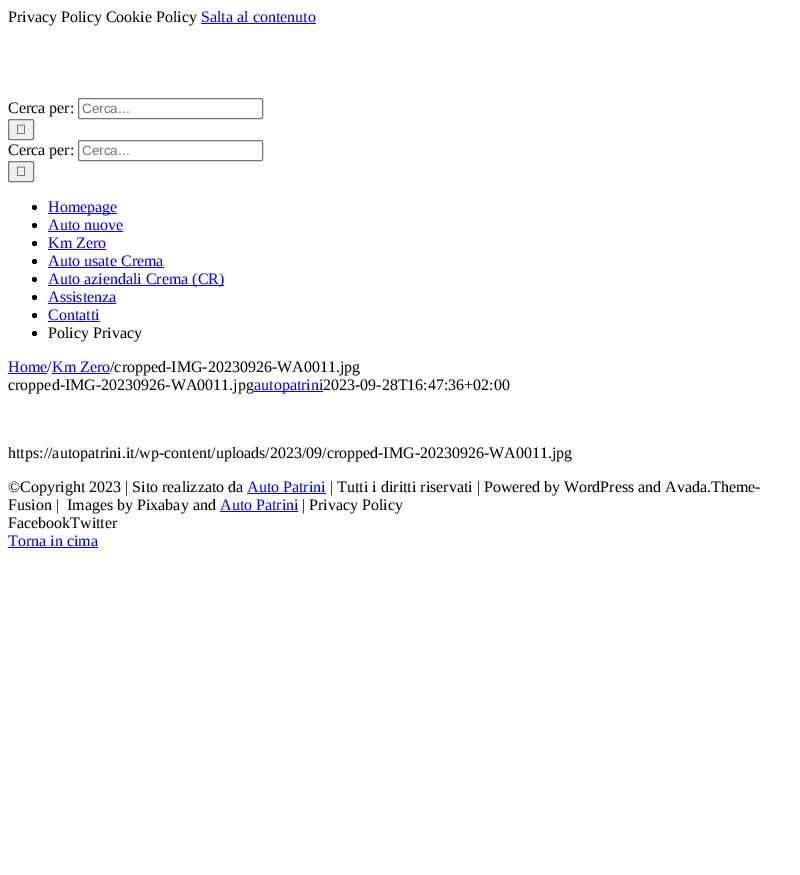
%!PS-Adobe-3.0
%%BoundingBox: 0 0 800 875
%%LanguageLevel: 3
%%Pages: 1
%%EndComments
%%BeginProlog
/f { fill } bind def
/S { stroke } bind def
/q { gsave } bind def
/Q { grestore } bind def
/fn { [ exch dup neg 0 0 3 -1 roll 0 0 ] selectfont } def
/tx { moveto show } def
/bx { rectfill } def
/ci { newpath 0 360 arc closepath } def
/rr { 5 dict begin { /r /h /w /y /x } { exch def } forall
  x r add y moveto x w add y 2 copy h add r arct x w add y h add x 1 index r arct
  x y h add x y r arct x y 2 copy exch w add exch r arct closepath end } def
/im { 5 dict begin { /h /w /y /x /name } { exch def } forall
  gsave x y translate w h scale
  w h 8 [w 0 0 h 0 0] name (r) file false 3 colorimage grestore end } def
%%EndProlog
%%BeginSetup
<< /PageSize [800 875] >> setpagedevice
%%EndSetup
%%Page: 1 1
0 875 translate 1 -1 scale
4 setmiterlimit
1 setgray
0 0 800 875 bx
/LiberationSerif-Regular 16 fn
0 setgray
(Privacy Policy Cookie Policy) 8 22 tx
0 0 0.933 setrgbcolor
(Salta al contenuto) 201 22 tx
201 23 115 1 bx
0 setgray
(Cerca per:) 8 113 tx
0.463 setgray
78.5 98.5 184 20 1.5 rr S
/LiberationSans-Regular 13.5 fn
0.459 setgray
(Cerca...) 82 113 tx
0.937 setgray
8.5 119.5 25 20 1.5 rr q f Q
0.463 setgray
S
(image0.raw) 17 124 8 10 im
/LiberationSerif-Regular 16 fn
0 setgray
(Cerca per:) 8 155 tx
0.463 setgray
78.5 140.5 184 20 1.5 rr S
/LiberationSans-Regular 13.5 fn
0.459 setgray
(Cerca...) 82 155 tx
0.937 setgray
8.5 161.5 25 20 1.5 rr q f Q
0.463 setgray
S
(image0.raw) 17 166 8 10 im
0 setgray
34.5 207.5 2.5 ci f
0 0 0.933 setrgbcolor
48 213 69 1 bx
/LiberationSerif-Regular 16 fn
(Homepage) 48 212 tx
0 setgray
34.5 225.5 2.5 ci f
0 0 0.933 setrgbcolor
(Auto nuove) 48 230 tx
48 231 75 1 bx
0 setgray
34.5 243.5 2.5 ci f
0 0 0.933 setrgbcolor
(Km Zero) 48 248 tx
48 249 58 1 bx
0 setgray
34.5 261.5 2.5 ci f
0 0 0.933 setrgbcolor
(Auto usate Crema) 48 266 tx
48 267 116 1 bx
0 setgray
34.5 279.5 2.5 ci f
0 0 0.933 setrgbcolor
48 285 176 1 bx
(Auto aziendali Crema \(CR\)) 48 284 tx
0 setgray
34.5 297.5 2.5 ci f
0 0 0.933 setrgbcolor
(Assistenza) 48 302 tx
48 303 68 1 bx
0 setgray
34.5 315.5 2.5 ci f
0 0 0.933 setrgbcolor
(Contatti) 48 320 tx
48 321 52 1 bx
0 setgray
34.5 333.5 2.5 ci f
(Policy Privacy) 48 338 tx
0 0 0.933 setrgbcolor
(Home) 8 372 tx
8 373 39 1 bx
0 setgray
(/) 47 372 tx
0 0 0.933 setrgbcolor
(Km Zero) 52 372 tx
52 373 58 1 bx
0 setgray
(/cropped-IMG-20230926-WA0011.jpg) 110 372 tx
(cropped-IMG-20230926-WA0011.jpg) 8 390 tx
0 0 0.933 setrgbcolor
254 391 69 1 bx
(autopatrini) 254 390 tx
0 setgray
(2023-09-28T16:47:36+02:00) 323 390 tx
(https://autopatrini.it/wp-content/uploads/2023/09/cropped-IMG-20230926-WA0011.jpg) 8 458 tx
(©Copyright 2023 | Sito realizzato da) 8 492 tx
0 0 0.933 setrgbcolor
(Auto Patrini) 247 492 tx
247 493 79 1 bx
0 setgray
(| Tutti i diritti riservati | Powered by WordPress and Avada.Theme-) 330 492 tx
(Fusion |  Images by Pixabay and) 8 510 tx
0 0 0.933 setrgbcolor
(Auto Patrini) 220 510 tx
220 511 78 1 bx
0 setgray
(| Privacy Policy) 302 510 tx
(FacebookTwitter) 8 528 tx
0 0 0.933 setrgbcolor
(Torna in cima) 8 546 tx
8 547 90 1 bx
showpage
%%EOF
